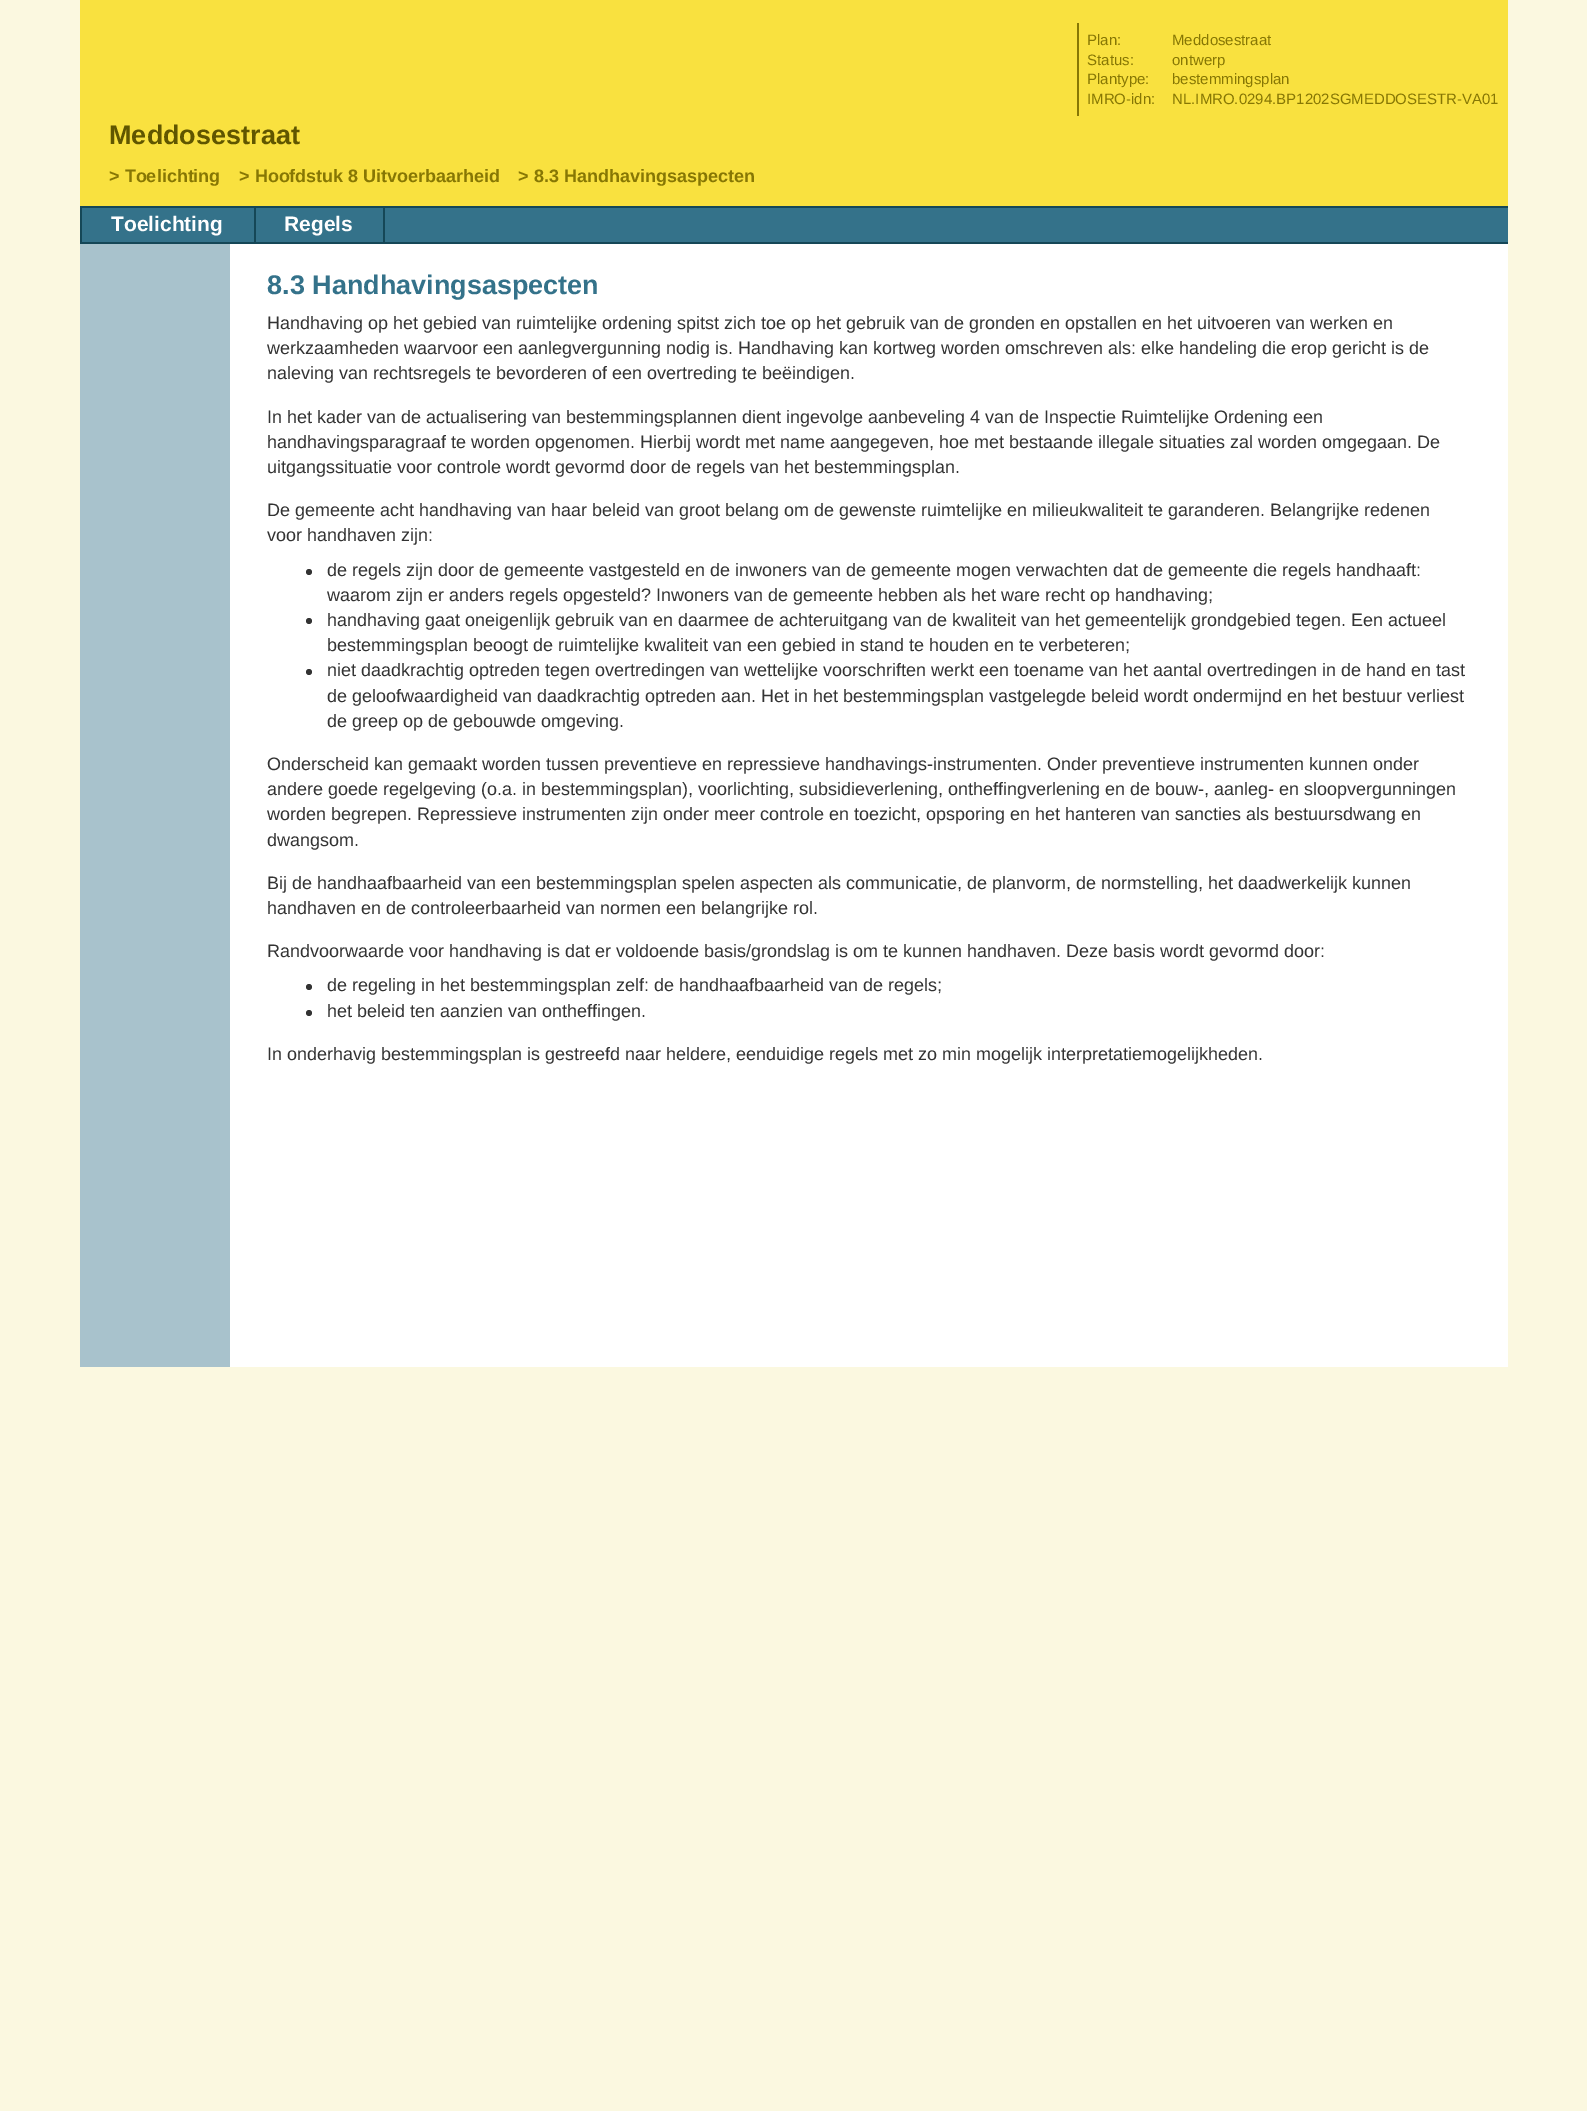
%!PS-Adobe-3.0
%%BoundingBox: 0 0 1587 2111
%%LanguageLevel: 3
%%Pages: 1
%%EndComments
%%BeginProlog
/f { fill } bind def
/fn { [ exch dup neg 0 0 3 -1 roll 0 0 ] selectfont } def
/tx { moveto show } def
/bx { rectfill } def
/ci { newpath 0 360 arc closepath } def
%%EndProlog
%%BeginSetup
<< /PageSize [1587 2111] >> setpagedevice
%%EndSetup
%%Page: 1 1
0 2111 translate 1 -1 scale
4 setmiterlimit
0.984 0.973 0.878 setrgbcolor
0 0 1587 2111 bx
0.659 0.761 0.8 setrgbcolor
80 244 150 1123 bx
0.976 0.882 0.247 setrgbcolor
80 0 1428 206 bx
0.529 0.467 0.016 setrgbcolor
1077 23 2 93 bx
/LiberationSans-Regular 15 fn
(Plan:) 1087 45 tx
(Meddosestraat) 1172 45 tx
(Status:) 1087 65 tx
(ontwerp) 1172 65 tx
(Plantype:) 1087 84 tx
(bestemmingsplan) 1172 84 tx
(IMRO-idn:) 1087 104 tx
(NL.IMRO.0294.BP1202SGMEDDOSESTR-VA01) 1172 104 tx
/LiberationSans-Bold 27 fn
0.376 0.337 0 setrgbcolor
(Meddosestraat) 109 144 tx
/LiberationSans-Bold 18 fn
0.529 0.467 0.016 setrgbcolor
(> Toelichting) 109 182 tx
(> Hoofdstuk 8 Uitvoerbaarheid) 239 182 tx
(> 8.3 Handhavingsaspecten) 518 182 tx
0.204 0.447 0.541 setrgbcolor
82 208 1426 34 bx
0.082 0.278 0.341 setrgbcolor
80 206 1428 2 bx
80 242 1428 2 bx
80 207 2 35 bx
254 207 2 35 bx
/LiberationSans-Bold 21 fn
1 setgray
(Toelichting) 111 231 tx
0.082 0.278 0.341 setrgbcolor
383 207 2 35 bx
1 setgray
(Regels) 284 231 tx
230 244 1278 1123 bx
/LiberationSans-Bold 27 fn
0.204 0.447 0.541 setrgbcolor
(8.3 Handhavingsaspecten) 267 294 tx
/LiberationSans-Regular 18 fn
0.2 setgray
(Handhaving op het gebied van ruimtelijke ordening spitst zich toe op het gebruik van de gronden en opstallen en het uitvoeren van werken en) 267 329 tx
(werkzaamheden waarvoor een aanlegvergunning nodig is. Handhaving kan kortweg worden omschreven als: elke handeling die erop gericht is de) 267 354 tx
(naleving van rechtsregels te bevorderen of een overtreding te beëindigen.) 267 379 tx
(In het kader van de actualisering van bestemmingsplannen dient ingevolge aanbeveling 4 van de Inspectie Ruimtelijke Ordening een) 267 423 tx
(handhavingsparagraaf te worden opgenomen. Hierbij wordt met name aangegeven, hoe met bestaande illegale situaties zal worden omgegaan. De) 267 448 tx
(uitgangssituatie voor controle wordt gevormd door de regels van het bestemmingsplan.) 267 473 tx
(De gemeente acht handhaving van haar beleid van groot belang om de gewenste ruimtelijke en milieukwaliteit te garanderen. Belangrijke redenen) 267 516 tx
(voor handhaven zijn:) 267 541 tx
309 572 3 ci f
(de regels zijn door de gemeente vastgesteld en de inwoners van de gemeente mogen verwachten dat de gemeente die regels handhaaft:) 327 576 tx
(waarom zijn er anders regels opgesteld? Inwoners van de gemeente hebben als het ware recht op handhaving;) 327 601 tx
309 621 3 ci f
(handhaving gaat oneigenlijk gebruik van en daarmee de achteruitgang van de kwaliteit van het gemeentelijk grondgebied tegen. Een actueel) 327 626 tx
(bestemmingsplan beoogt de ruimtelijke kwaliteit van een gebied in stand te houden en te verbeteren;) 327 651 tx
309 672 3 ci f
(niet daadkrachtig optreden tegen overtredingen van wettelijke voorschriften werkt een toename van het aantal overtredingen in de hand en tast) 327 676 tx
(de geloofwaardigheid van daadkrachtig optreden aan. Het in het bestemmingsplan vastgelegde beleid wordt ondermijnd en het bestuur verliest) 327 702 tx
(de greep op de gebouwde omgeving.) 327 727 tx
(Onderscheid kan gemaakt worden tussen preventieve en repressieve handhavings-instrumenten. Onder preventieve instrumenten kunnen onder) 267 770 tx
(andere goede regelgeving \(o.a. in bestemmingsplan\), voorlichting, subsidieverlening, ontheffingverlening en de bouw-, aanleg- en sloopvergunningen) 267 795 tx
(worden begrepen. Repressieve instrumenten zijn onder meer controle en toezicht, opsporing en het hanteren van sancties als bestuursdwang en) 267 820 tx
(dwangsom.) 267 846 tx
(Bij de handhaafbaarheid van een bestemmingsplan spelen aspecten als communicatie, de planvorm, de normstelling, het daadwerkelijk kunnen) 267 889 tx
(handhaven en de controleerbaarheid van normen een belangrijke rol.) 267 914 tx
(Randvoorwaarde voor handhaving is dat er voldoende basis/grondslag is om te kunnen handhaven. Deze basis wordt gevormd door:) 267 957 tx
309 987 3 ci f
(de regeling in het bestemmingsplan zelf: de handhaafbaarheid van de regels;) 327 991 tx
309 1013 3 ci f
(het beleid ten aanzien van ontheffingen.) 327 1017 tx
(In onderhavig bestemmingsplan is gestreefd naar heldere, eenduidige regels met zo min mogelijk interpretatiemogelijkheden.) 267 1060 tx
showpage
%%EOF
